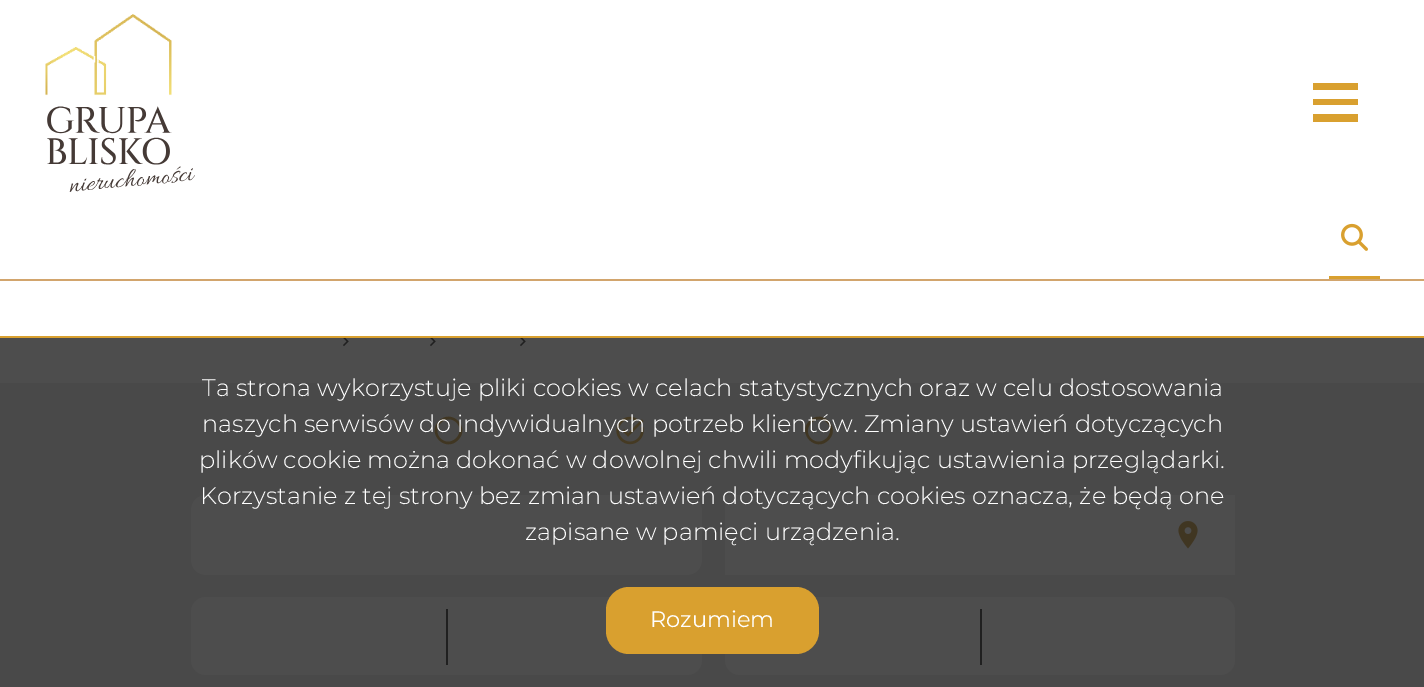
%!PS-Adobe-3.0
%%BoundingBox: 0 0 1424 687
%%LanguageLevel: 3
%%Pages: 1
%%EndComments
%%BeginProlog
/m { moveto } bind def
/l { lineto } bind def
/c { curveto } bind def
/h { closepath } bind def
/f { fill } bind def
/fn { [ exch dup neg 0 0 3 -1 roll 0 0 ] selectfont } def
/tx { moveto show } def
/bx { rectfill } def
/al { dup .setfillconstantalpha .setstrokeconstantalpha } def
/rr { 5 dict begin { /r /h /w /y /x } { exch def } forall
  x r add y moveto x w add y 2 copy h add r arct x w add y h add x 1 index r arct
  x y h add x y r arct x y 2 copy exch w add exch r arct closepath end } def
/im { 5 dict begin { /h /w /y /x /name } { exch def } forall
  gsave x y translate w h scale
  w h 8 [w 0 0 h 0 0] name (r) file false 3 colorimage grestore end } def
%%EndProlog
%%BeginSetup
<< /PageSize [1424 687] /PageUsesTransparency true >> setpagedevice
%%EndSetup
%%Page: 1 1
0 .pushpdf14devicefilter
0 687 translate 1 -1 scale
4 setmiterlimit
1 setgray
0 0 1424 687 bx
0.824 0.647 0.427 setrgbcolor
0 279 1424 2 bx
(image0.raw) 45 14 150 178 im
0.851 0.627 0.184 setrgbcolor
1313 83 45 7 bx
1313 99 45 6 bx
1313 114 45 8 bx
1329 276 51 3 bx
(image1.raw) 1341 223 27 28 im
(image2.raw) 343 338 6 9 im
(image2.raw) 430 338 6 9 im
(image2.raw) 520 338 6 9 im
0.925 setgray
0 383 1424 304 bx
0.757 0.557 0.161 setrgbcolor
440.5 438.5 m 451 448.5 466.5 433 456.5 422.5 c 446 412.5 430.5 428 440.5 438.5 c h 439 421 m 451.5 408 471 427.5 458 440 c 445.5 453 426 433.5 439 421 c h f
(image3.raw) 616 416 28 29 im
811 438.5 m 821.5 448.5 837 433 827 422.5 c 816.5 412.5 801 428 811 438.5 c h 809.5 421 m 822 408 841.5 427.5 828.5 440 c 816 453 796.5 433.5 809.5 421 c h f
1 setgray
191 495 511 80 15 rr f
725 495 510 80 bx
(image4.raw) 1178 521 20 28 im
206 597 m 446 597 l 446 675 l 206 675 l 197.5 675 191 668.5 191 660 c 191 612 l 191 603.5 197.5 597 206 597 c h f
446 597 m 687 597 l 695.5 597 702 603.5 702 612 c 702 660 l 702 668.5 695.5 675 687 675 c 446 675 l h f
0.125 setgray
446 609 2 56 bx
1 setgray
740 597 m 980 597 l 980 675 l 740 675 l 731.5 675 725 668.5 725 660 c 725 612 l 725 603.5 731.5 597 740 597 c h f
980 597 m 1220 597 l 1228.5 597 1235 603.5 1235 612 c 1235 660 l 1235 668.5 1228.5 675 1220 675 c 980 675 l h f
0.125 setgray
980 609 2 56 bx
0.8 al
0 338 1424 349 bx
1 al
0.851 0.627 0.184 setrgbcolor
0 336 1424 2 bx
/Montserrat-Light 24 fn
1 setgray
(Ta strona wykorzystuje pliki cookies w celach statystycznych oraz w celu dostosowania) 202 396 tx
(naszych serwisów do indywidualnych potrzeb klientów. Zmiany ustawień dotyczących) 202 432 tx
(plików cookie można dokonać w dowolnej chwili modyfikując ustawienia przeglądarki.) 199 468 tx
(Korzystanie z tej strony bez zmian ustawień dotyczących cookies oznacza, że będą one) 200 504 tx
(zapisane w pamięci urządzenia.) 525 540 tx
0.851 0.627 0.184 setrgbcolor
606 587 213 67 23 rr f
/Montserrat-Regular 22.5 fn
1 setgray
(Rozumiem) 650 627 tx
.poppdf14devicefilter showpage
%%EOF
